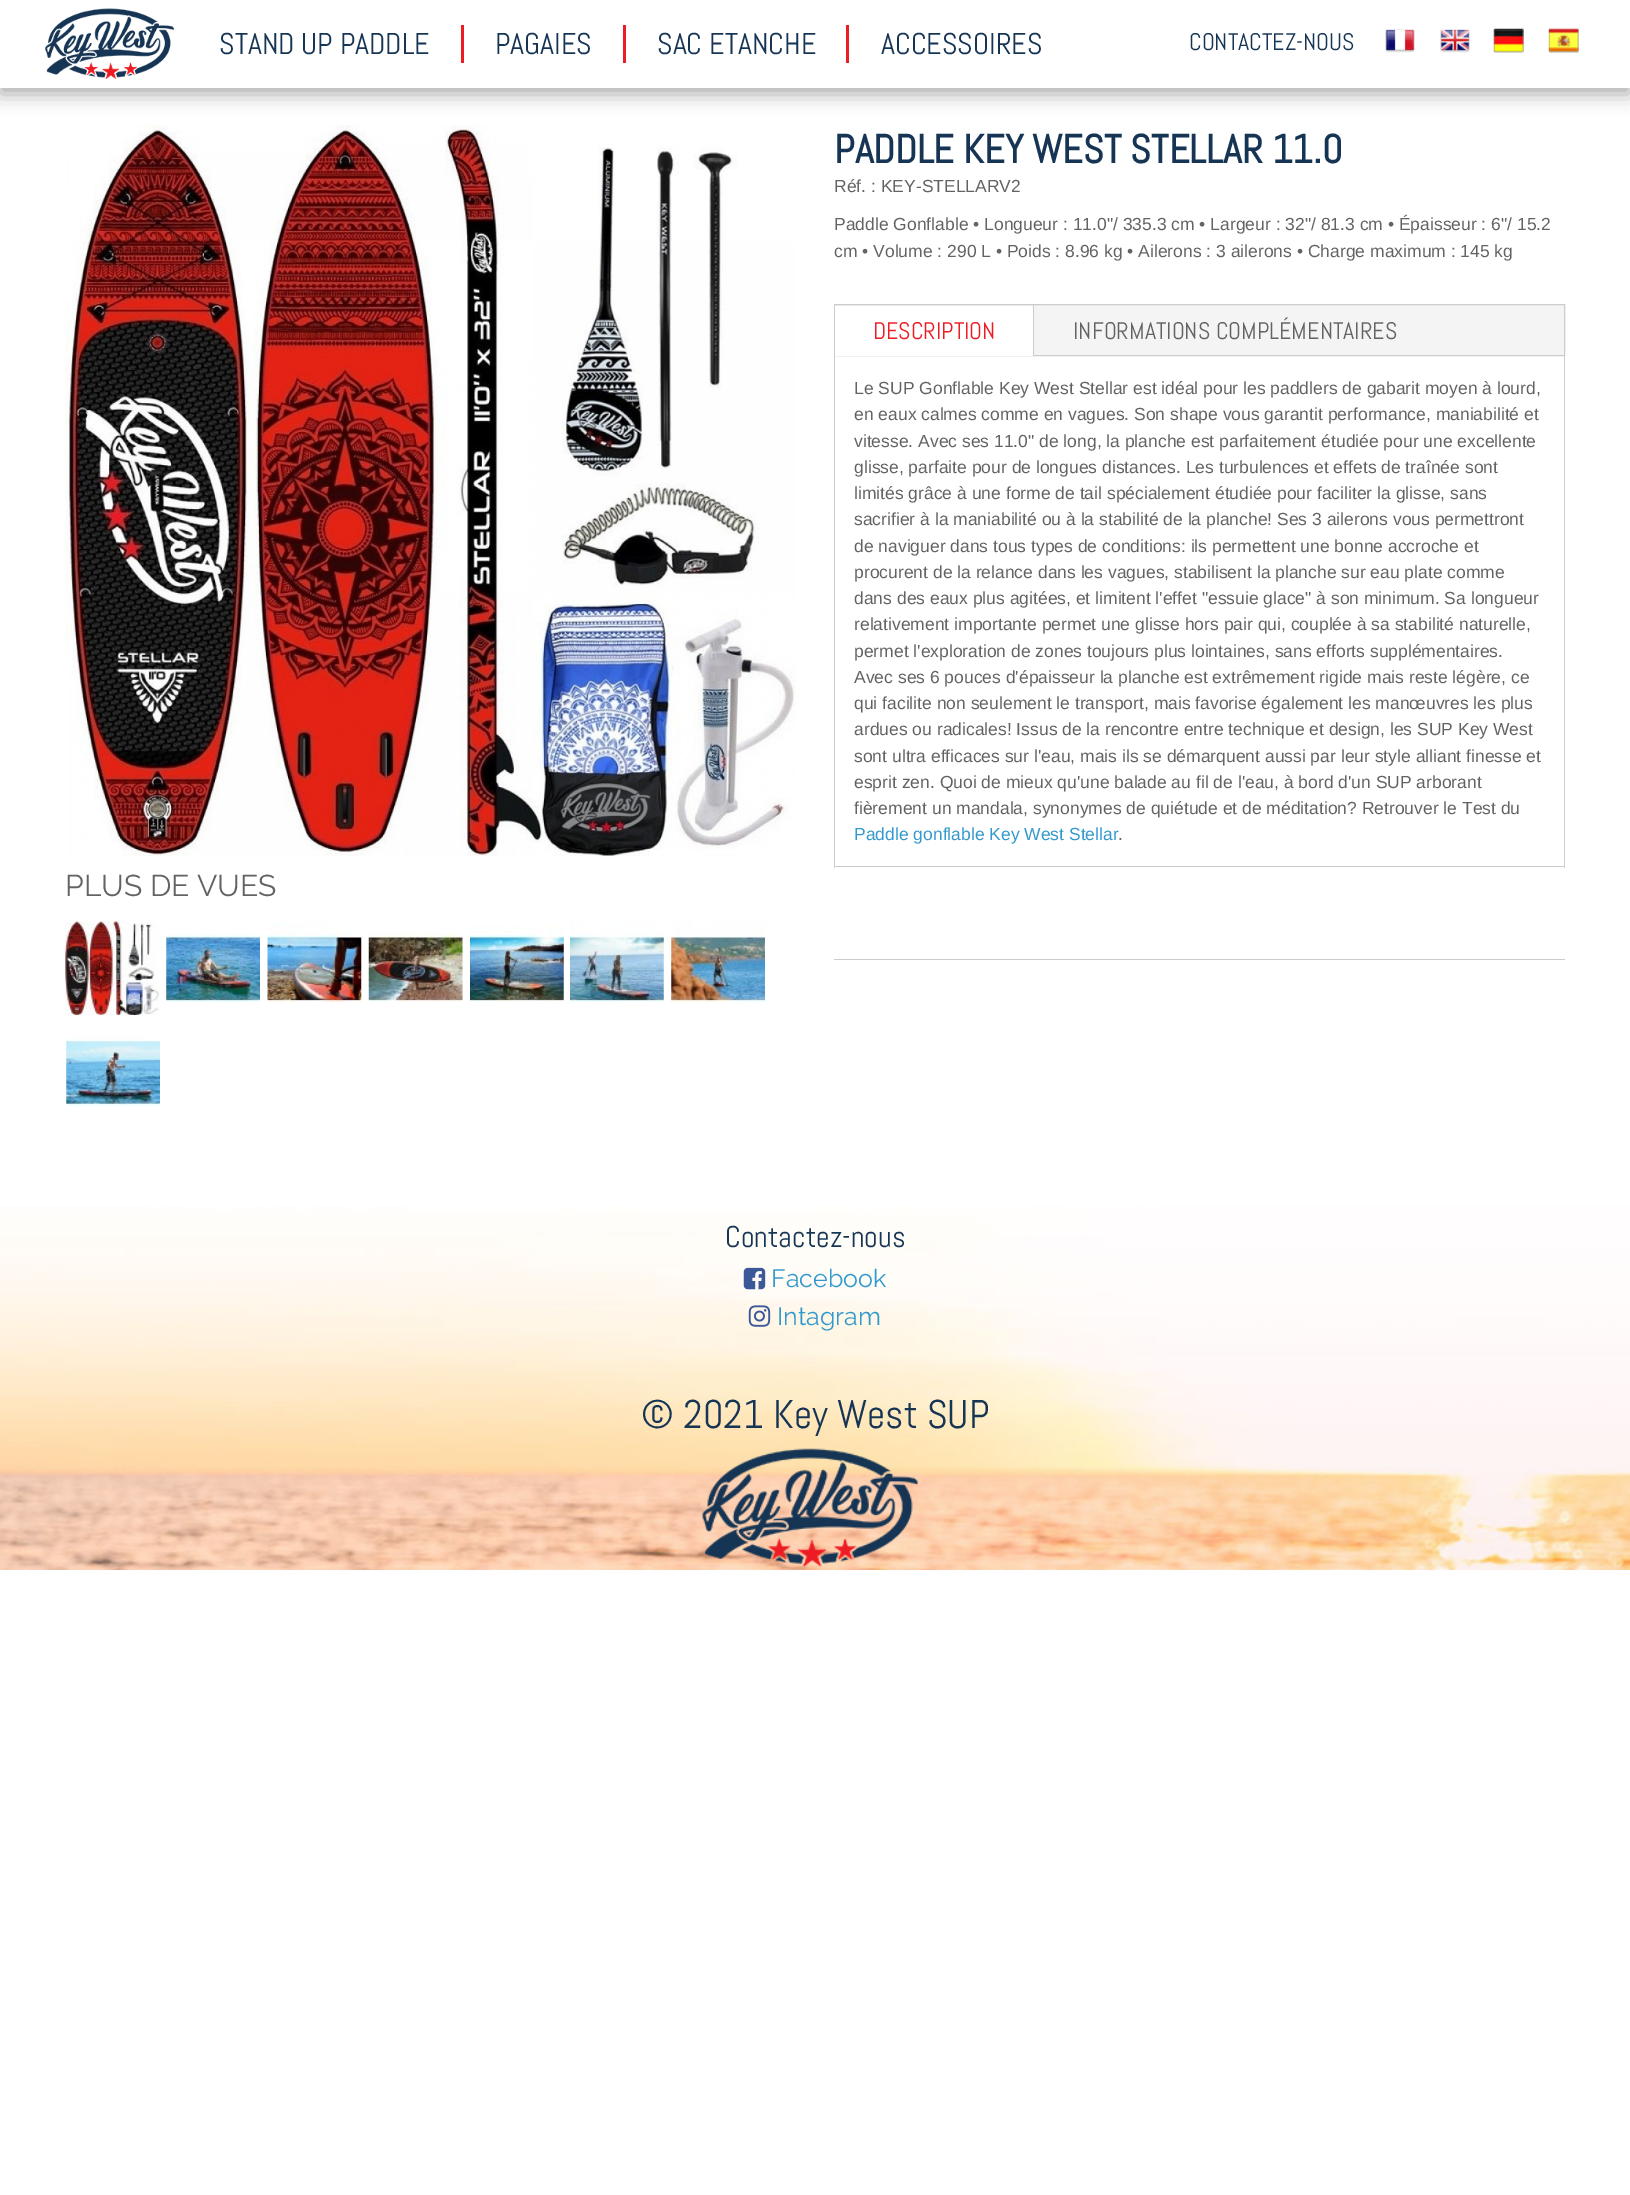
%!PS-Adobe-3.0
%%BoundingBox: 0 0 1630 2195
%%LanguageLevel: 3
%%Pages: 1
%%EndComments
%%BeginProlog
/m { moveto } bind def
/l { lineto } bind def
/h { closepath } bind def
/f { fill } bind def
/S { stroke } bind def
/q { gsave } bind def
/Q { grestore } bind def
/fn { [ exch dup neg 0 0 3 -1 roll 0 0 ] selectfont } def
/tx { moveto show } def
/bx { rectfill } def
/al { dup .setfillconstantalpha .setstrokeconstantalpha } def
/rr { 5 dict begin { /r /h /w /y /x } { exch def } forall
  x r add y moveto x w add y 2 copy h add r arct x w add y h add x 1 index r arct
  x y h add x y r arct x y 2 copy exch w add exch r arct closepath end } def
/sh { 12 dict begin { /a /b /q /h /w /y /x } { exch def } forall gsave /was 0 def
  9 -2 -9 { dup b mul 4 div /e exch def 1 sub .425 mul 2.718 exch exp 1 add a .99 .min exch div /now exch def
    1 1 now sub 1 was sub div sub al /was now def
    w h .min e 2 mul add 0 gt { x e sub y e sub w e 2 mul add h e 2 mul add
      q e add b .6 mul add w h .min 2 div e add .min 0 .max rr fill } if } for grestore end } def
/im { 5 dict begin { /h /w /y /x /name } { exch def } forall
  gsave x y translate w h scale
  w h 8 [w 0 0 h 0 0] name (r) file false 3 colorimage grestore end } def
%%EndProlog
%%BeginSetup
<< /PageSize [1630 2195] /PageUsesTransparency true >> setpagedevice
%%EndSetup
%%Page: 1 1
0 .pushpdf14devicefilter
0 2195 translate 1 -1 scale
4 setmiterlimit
1 setgray
0 0 1630 2195 bx
(image0.raw) 0 1206 1630 364 im
q
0 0 m 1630 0 l 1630 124 l 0 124 l h 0 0 m 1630 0 l 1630 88 l 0 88 l h eoclip newpath
0 setgray
0 6 1630 88 0 9.5 0.33 sh
Q
(image1.raw) 45 8 129 71 im
0.929 0.11 0.141 setrgbcolor
461 25 3 38 bx
/Abel-Regular 30 fn
0.086 0.208 0.329 setrgbcolor
(STAND UP PADDLE) 219 54 tx
0.929 0.11 0.141 setrgbcolor
623 25 3 38 bx
0.086 0.208 0.329 setrgbcolor
(PAGAIES) 495 54 tx
0.929 0.11 0.141 setrgbcolor
846 25 3 38 bx
0.086 0.208 0.329 setrgbcolor
(SAC ETANCHE) 657 54 tx
(ACCESSOIRES) 881 54 tx
/Abel-Regular 24 fn
(CONTACTEZ-NOUS) 1189 50 tx
(image2.raw) 1385 29 30 24 im
(image3.raw) 1440 29 30 24 im
(image4.raw) 1493 28 31 25 im
(image5.raw) 1548 27 31 26 im
/Abel-Bold 40 fn
(PADDLE KEY WEST STELLAR 11.0) 834 163 tx
/LiberationSans-Regular 17.5 fn
0.388 setgray
(Réf. : KEY-STELLARV2) 834 192 tx
(Paddle Gonflable • Longueur : 11.0"/ 335.3 cm • Largeur : 32"/ 81.3 cm • Épaisseur : 6"/ 15.2) 834 230 tx
(cm • Volume : 290 L • Poids : 8.96 kg • Ailerons : 3 ailerons • Charge maximum : 145 kg) 834 257 tx
0.957 setgray
834.5 304.5 m 1564.5 304.5 l 1564.5 355.5 l 834.5 355.5 l h q f Q
0.8 setgray
S
1033 305 1 50 bx
1 setgray
835 306 198 50 bx
/Abel-Regular 24 fn
0.929 0.11 0.141 setrgbcolor
(DESCRIPTION) 873 339 tx
0.388 setgray
(INFORMATIONS COMPLÉMENTAIRES) 1073 339 tx
0.8 setgray
1564 356 1 512 bx
834 866 731 1 bx
834 356 1 512 bx
/LiberationSans-Regular 17.5 fn
0.388 setgray
(Le SUP Gonflable Key West Stellar est idéal pour les paddlers de gabarit moyen à lourd,) 854 394 tx
(en eaux calmes comme en vagues. Son shape vous garantit performance, maniabilité et) 854 420 tx
(vitesse. Avec ses 11.0" de long, la planche est parfaitement étudiée pour une excellente) 854 447 tx
(glisse, parfaite pour de longues distances. Les turbulences et effets de traînée sont) 854 473 tx
(limités grâce à une forme de tail spécialement étudiée pour faciliter la glisse, sans) 854 499 tx
(sacrifier à la maniabilité ou à la stabilité de la planche! Ses 3 ailerons vous permettront) 854 525 tx
(de naviguer dans tous types de conditions: ils permettent une bonne accroche et) 854 552 tx
(procurent de la relance dans les vagues, stabilisent la planche sur eau plate comme) 854 578 tx
(dans des eaux plus agitées, et limitent l'effet "essuie glace" à son minimum. Sa longueur) 854 604 tx
(relativement importante permet une glisse hors pair qui, couplée à sa stabilité naturelle,) 854 630 tx
(permet l'exploration de zones toujours plus lointaines, sans efforts supplémentaires.) 854 657 tx
(Avec ses 6 pouces d'épaisseur la planche est extrêmement rigide mais reste légère, ce) 854 683 tx
(qui facilite non seulement le transport, mais favorise également les manœuvres les plus) 854 709 tx
(ardues ou radicales! Issus de la rencontre entre technique et design, les SUP Key West) 854 735 tx
(sont ultra efficaces sur l'eau, mais ils se démarquent aussi par leur style alliant finesse et) 854 762 tx
(esprit zen. Quoi de mieux qu'une balade au fil de l'eau, à bord d'un SUP arborant) 854 788 tx
(fièrement un mandala, synonymes de quiétude et de méditation? Retrouver le Test du) 854 814 tx
0.2 0.6 0.8 setrgbcolor
(Paddle gonflable Key West Stellar) 854 840 tx
0.388 setgray
(.) 1118 840 tx
(image6.raw) 65 125 731 732 im
/Raleway-Regular 30 fn
(PLUS DE VUES) 65 896 tx
(image7.raw) 65 921 94 94 im
(image8.raw) 166 934 94 69 im
(image9.raw) 267 922 95 81 im
(image10.raw) 368 933 95 69 im
(image11.raw) 470 925 94 77 im
(image12.raw) 570 921 94 81 im
(image13.raw) 671 921 94 82 im
(image14.raw) 66 1035 94 71 im
0.8 setgray
834 959 731 1 bx
/Abel-Regular 30 fn
0.086 0.208 0.329 setrgbcolor
(Contactez-nous) 725 1247 tx
(image15.raw) 743 1267 23 23 im
/Raleway-Regular 25 fn
0.2 0.6 0.8 setrgbcolor
(Facebook) 771 1287 tx
(image16.raw) 748 1305 23 22 im
(Intagram) 777 1325 tx
(image17.raw) 702 1448 216 119 im
/Abel-Regular 40 fn
0.086 0.208 0.329 setrgbcolor
(© 2021 Key West SUP) 641 1428 tx
.poppdf14devicefilter showpage
%%EOF
